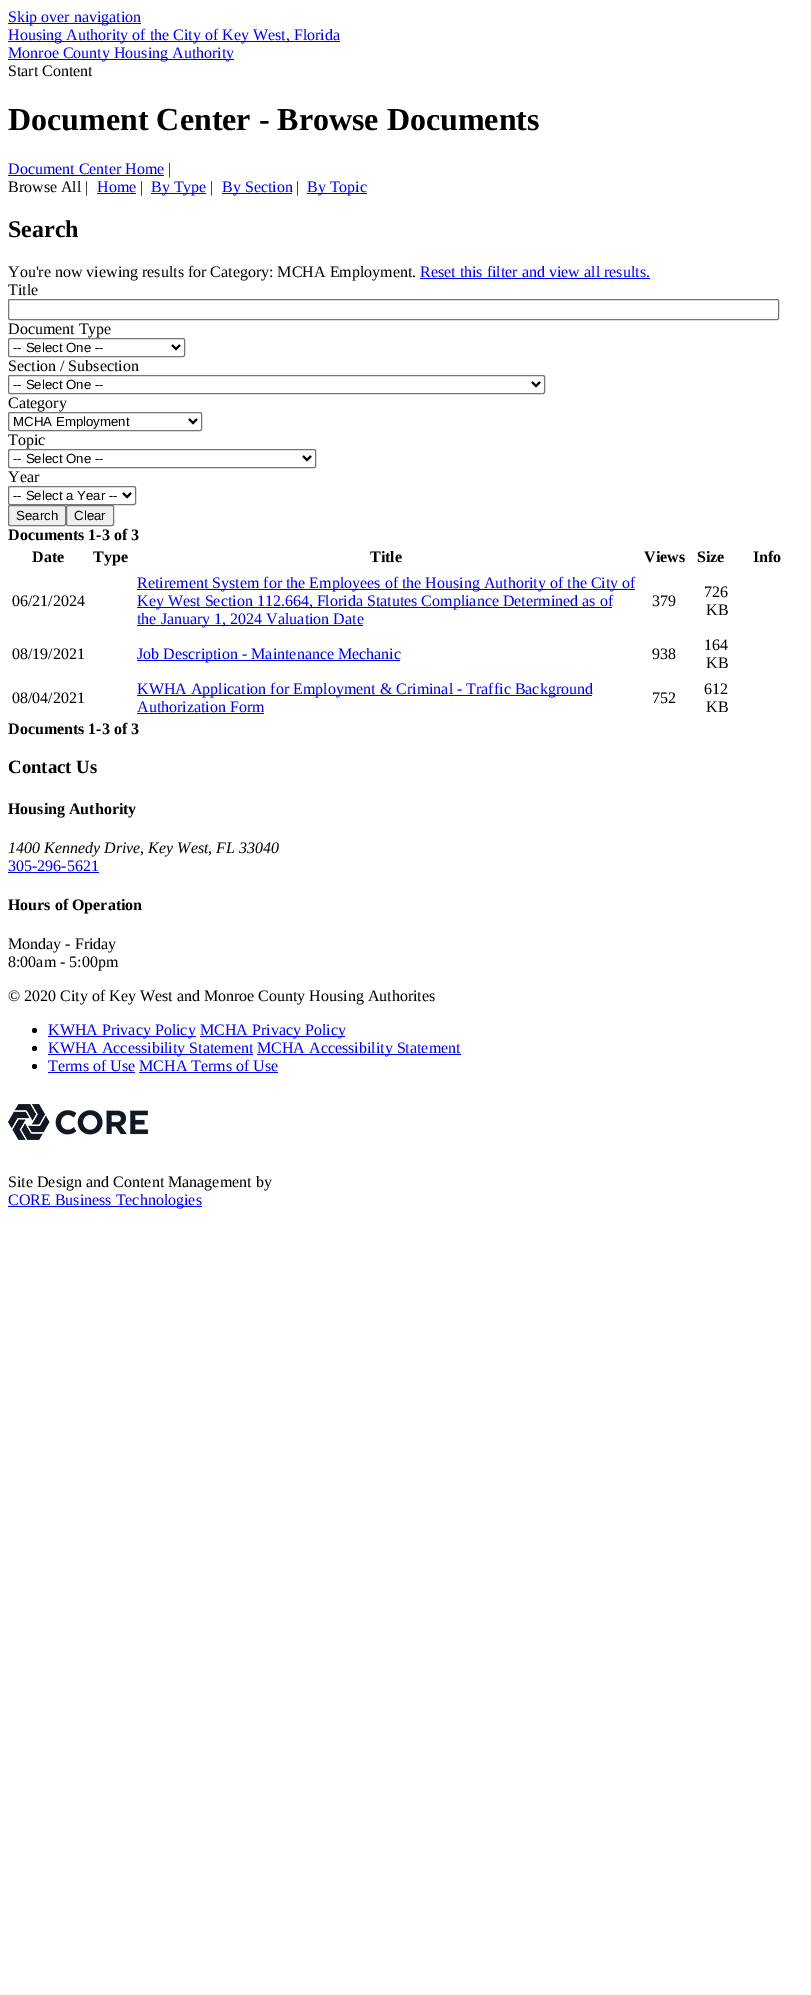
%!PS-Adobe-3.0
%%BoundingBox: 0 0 811 1995
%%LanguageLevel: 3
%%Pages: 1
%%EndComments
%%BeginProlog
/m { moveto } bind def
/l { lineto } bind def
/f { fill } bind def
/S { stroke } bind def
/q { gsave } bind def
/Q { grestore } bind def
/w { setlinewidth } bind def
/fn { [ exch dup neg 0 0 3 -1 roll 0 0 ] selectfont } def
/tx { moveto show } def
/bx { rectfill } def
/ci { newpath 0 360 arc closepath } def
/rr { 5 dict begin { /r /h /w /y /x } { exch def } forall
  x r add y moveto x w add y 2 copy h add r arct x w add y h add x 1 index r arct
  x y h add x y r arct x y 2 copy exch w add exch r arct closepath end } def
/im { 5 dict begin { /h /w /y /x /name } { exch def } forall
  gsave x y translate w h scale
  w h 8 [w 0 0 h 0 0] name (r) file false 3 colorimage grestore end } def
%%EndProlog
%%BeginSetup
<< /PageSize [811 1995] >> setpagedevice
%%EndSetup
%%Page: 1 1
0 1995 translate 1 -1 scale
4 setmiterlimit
1 setgray
0 0 811 1995 bx
0 0 0.933 setrgbcolor
8 23 133 1 bx
/LiberationSerif-Regular 16 fn
(Skip over navigation) 8 22 tx
8 41 332 1 bx
(Housing Authority of the City of Key West, Florida) 8 40 tx
8 59 226 1 bx
(Monroe County Housing Authority) 8 58 tx
0 setgray
(Start Content) 8 76 tx
/LiberationSerif-Bold 32 fn
(Document Center - Browse Documents) 8 130 tx
/LiberationSerif-Regular 16 fn
0 0 0.933 setrgbcolor
(Document Center Home) 8 174 tx
8 175 156 1 bx
0 setgray
(|) 168 174 tx
(Browse All |) 8 192 tx
0 0 0.933 setrgbcolor
(Home) 97 192 tx
97 193 39 1 bx
0 setgray
(|) 140 192 tx
0 0 0.933 setrgbcolor
151 193 55 1 bx
(By Type) 151 192 tx
0 setgray
(|) 210 192 tx
0 0 0.933 setrgbcolor
222 193 70 1 bx
(By Section) 222 192 tx
0 setgray
(|) 296 192 tx
0 0 0.933 setrgbcolor
307 193 60 1 bx
(By Topic) 307 192 tx
/LiberationSerif-Bold 24 fn
0 setgray
(Search) 8 237 tx
/LiberationSerif-Regular 16 fn
(You're now viewing results for Category: MCHA Employment.) 8 277 tx
0 0 0.933 setrgbcolor
(Reset this filter and view all results.) 420 277 tx
420 278 230 1 bx
0 setgray
(Title) 8 295 tx
0.463 setgray
8.5 299.5 770 20 1.5 rr S
0 setgray
(Document Type) 8 334 tx
0.463 setgray
8.5 338.5 176 18 1.5 rr S
0 setgray
2 w
172 345 m 176 349 l 180 345 l S
/LiberationSans-Regular 13.25 fn
(-- Select One --) 13 352 tx
/LiberationSerif-Regular 16 fn
(Section / Subsection) 8 371 tx
0.463 setgray
1 w
8.5 375.5 536 18 1.5 rr S
0 setgray
2 w
532 382 m 536 386 l 540 382 l S
/LiberationSans-Regular 13.25 fn
(-- Select One --) 13 389 tx
/LiberationSerif-Regular 16 fn
(Category) 8 408 tx
0.463 setgray
1 w
8.5 412.5 193 18 1.5 rr S
0 setgray
2 w
189 419 m 193 423 l 197 419 l S
/LiberationSans-Regular 13.25 fn
(MCHA Employment) 13 426 tx
/LiberationSerif-Regular 16 fn
(Topic) 8 445 tx
0.463 setgray
1 w
8.5 449.5 307 18 1.5 rr S
0 setgray
2 w
303 456 m 307 460 l 311 456 l S
/LiberationSans-Regular 13.25 fn
(-- Select One --) 13 463 tx
/LiberationSerif-Regular 16 fn
(Year) 8 482 tx
0.463 setgray
1 w
8.5 486.5 127 18 1.5 rr S
0 setgray
2 w
123 493 m 127 497 l 131 493 l S
/LiberationSans-Regular 13.25 fn
(-- Select a Year --) 13 500 tx
0.937 setgray
8.5 505.5 57 20 1.5 rr q f Q
0.463 setgray
1 w
S
0 setgray
(Search) 16 520 tx
0.937 setgray
66.5 505.5 47 20 1.5 rr q f Q
0.463 setgray
S
0 setgray
(Clear) 74 520 tx
/LiberationSerif-Bold 16 fn
(Documents 1-3 of 3) 8 540 tx
(Date) 32 562 tx
(Type) 93 562 tx
(Title) 370 562 tx
(Views) 644 562 tx
(Size) 697 562 tx
(Info) 753 562 tx
/LiberationSerif-Regular 16 fn
(06/21/2024) 12 606 tx
0 0 0.933 setrgbcolor
137 589 498 1 bx
(Retirement System for the Employees of the Housing Authority of the City of) 137 588 tx
137 607 475 1 bx
(Key West Section 112.664, Florida Statutes Compliance Determined as of) 137 606 tx
137 625 226 1 bx
(the January 1, 2024 Valuation Date) 137 624 tx
0 setgray
(379) 652 606 tx
(726) 704 597 tx
(KB) 706 615 tx
(08/19/2021) 12 659 tx
0 0 0.933 setrgbcolor
137 660 263 1 bx
(Job Description - Maintenance Mechanic) 137 659 tx
0 setgray
(938) 652 659 tx
(164) 704 650 tx
(KB) 706 668 tx
(08/04/2021) 12 703 tx
0 0 0.933 setrgbcolor
137 695 455 1 bx
(KWHA Application for Employment & Criminal - Traffic Background) 137 694 tx
(Authorization Form) 137 712 tx
137 713 127 1 bx
0 setgray
(752) 652 703 tx
(612) 704 694 tx
(KB) 706 712 tx
/LiberationSerif-Bold 16 fn
(Documents 1-3 of 3) 8 734 tx
/LiberationSerif-Bold 18.75 fn
(Contact Us) 8 773 tx
/LiberationSerif-Bold 16 fn
(Housing Authority) 8 814 tx
/LiberationSerif-Italic 16 fn
(1400 Kennedy Drive, Key West, FL 33040) 8 853 tx
/LiberationSerif-Regular 16 fn
0 0 0.933 setrgbcolor
(305-296-5621) 8 871 tx
8 872 91 1 bx
/LiberationSerif-Bold 16 fn
0 setgray
(Hours of Operation) 8 910 tx
/LiberationSerif-Regular 16 fn
(Monday - Friday) 8 949 tx
(8:00am - 5:00pm) 8 967 tx
(© 2020 City of Key West and Monroe County Housing Authorites) 8 1001 tx
34.5 1030.5 2.5 ci f
0 0 0.933 setrgbcolor
48 1036 148 1 bx
(KWHA Privacy Policy) 48 1035 tx
200 1036 145 1 bx
(MCHA Privacy Policy) 200 1035 tx
0 setgray
34.5 1048.5 2.5 ci f
0 0 0.933 setrgbcolor
48 1054 205 1 bx
(KWHA Accessibility Statement) 48 1053 tx
257 1054 204 1 bx
(MCHA Accessibility Statement) 257 1053 tx
0 setgray
34.5 1066.5 2.5 ci f
0 0 0.933 setrgbcolor
(Terms of Use MCHA Terms of Use) 48 1071 tx
48 1072 87 1 bx
139 1072 139 1 bx
(image0.raw) 8 1104 140 36 im
0 setgray
(Site Design and Content Management by) 8 1187 tx
0 0 0.933 setrgbcolor
8 1206 194 1 bx
(CORE Business Technologies) 8 1205 tx
showpage
%%EOF
